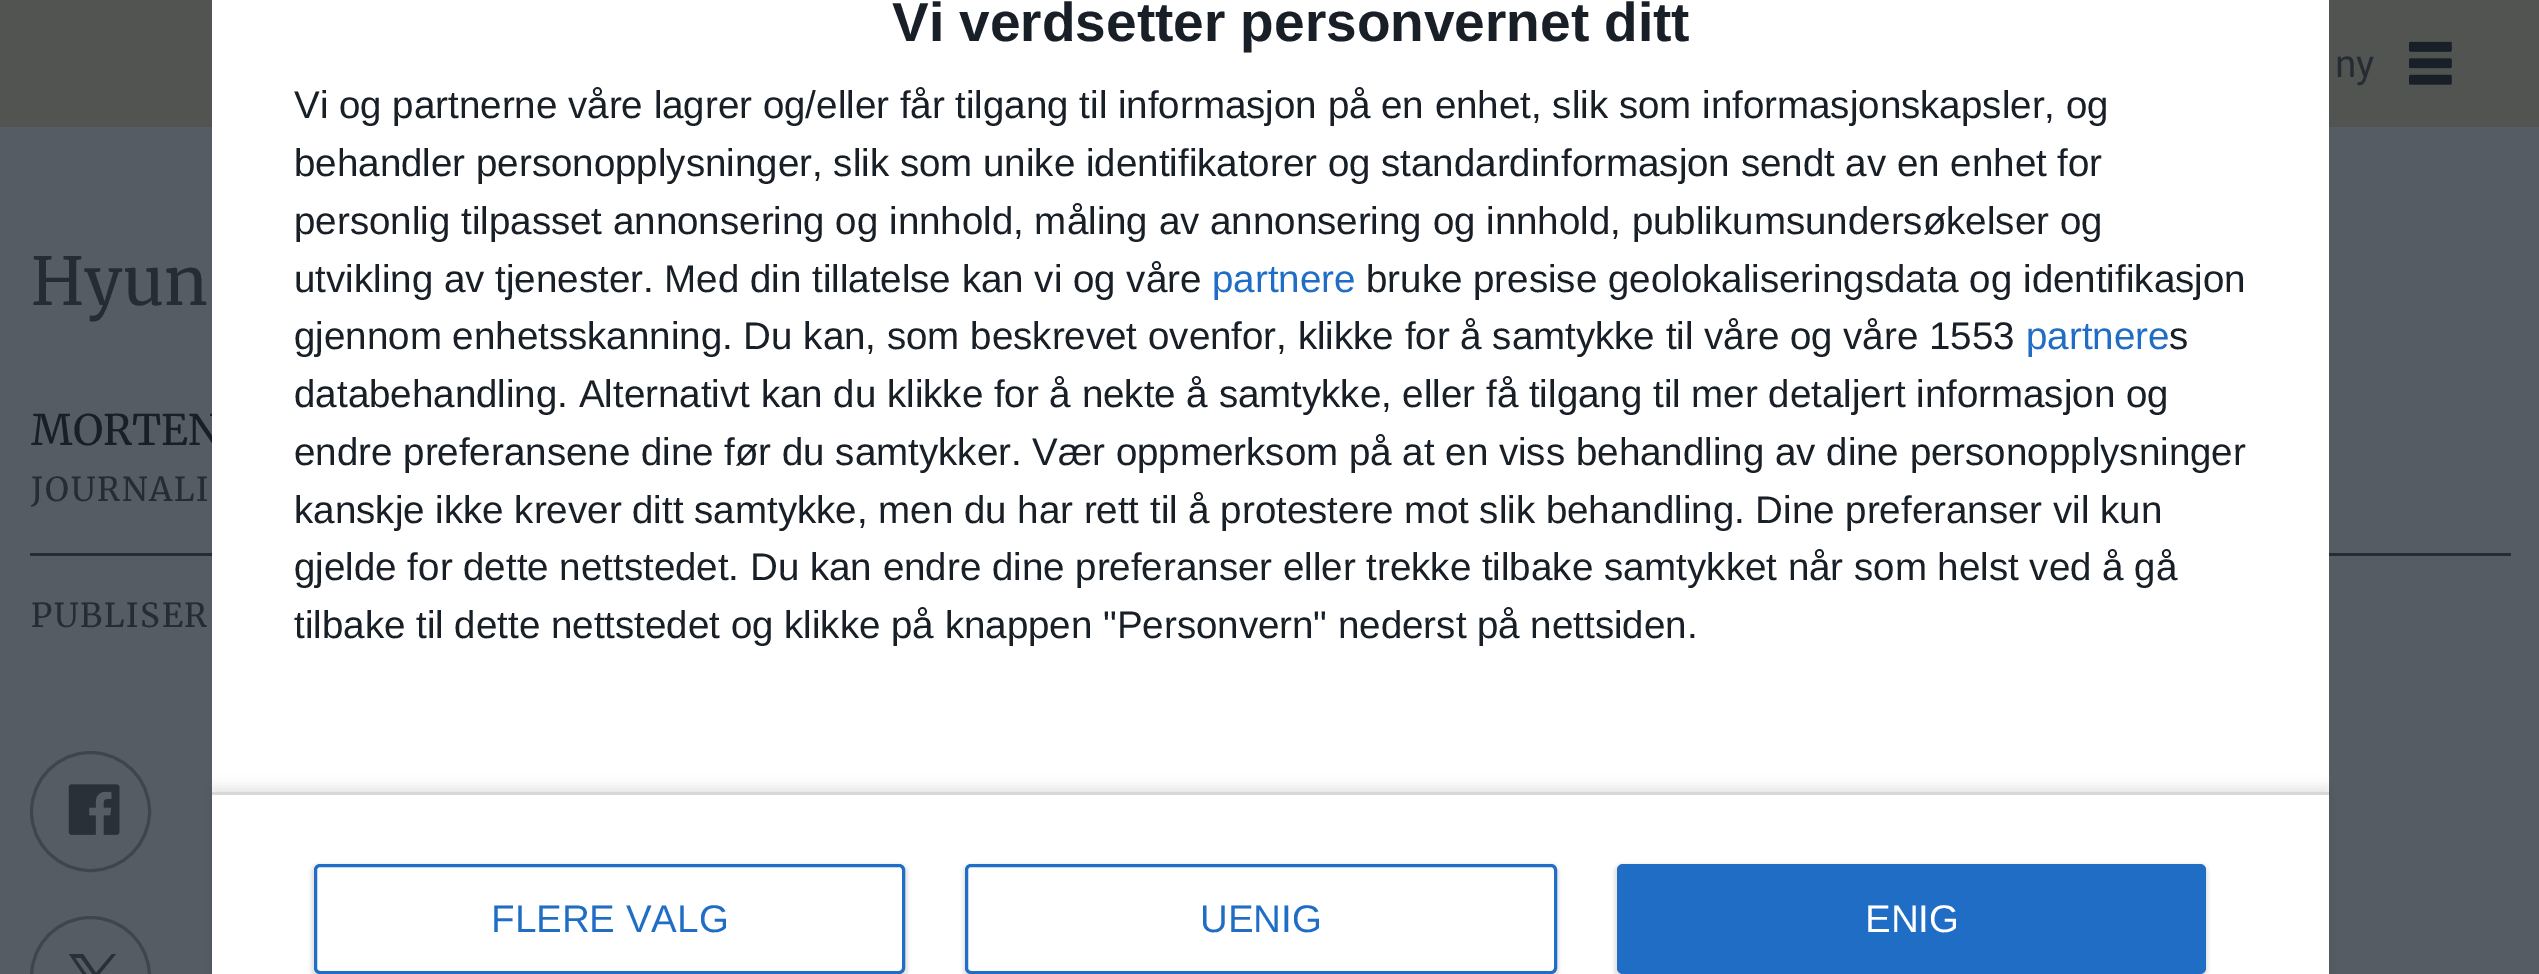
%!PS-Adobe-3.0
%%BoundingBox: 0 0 2539 974
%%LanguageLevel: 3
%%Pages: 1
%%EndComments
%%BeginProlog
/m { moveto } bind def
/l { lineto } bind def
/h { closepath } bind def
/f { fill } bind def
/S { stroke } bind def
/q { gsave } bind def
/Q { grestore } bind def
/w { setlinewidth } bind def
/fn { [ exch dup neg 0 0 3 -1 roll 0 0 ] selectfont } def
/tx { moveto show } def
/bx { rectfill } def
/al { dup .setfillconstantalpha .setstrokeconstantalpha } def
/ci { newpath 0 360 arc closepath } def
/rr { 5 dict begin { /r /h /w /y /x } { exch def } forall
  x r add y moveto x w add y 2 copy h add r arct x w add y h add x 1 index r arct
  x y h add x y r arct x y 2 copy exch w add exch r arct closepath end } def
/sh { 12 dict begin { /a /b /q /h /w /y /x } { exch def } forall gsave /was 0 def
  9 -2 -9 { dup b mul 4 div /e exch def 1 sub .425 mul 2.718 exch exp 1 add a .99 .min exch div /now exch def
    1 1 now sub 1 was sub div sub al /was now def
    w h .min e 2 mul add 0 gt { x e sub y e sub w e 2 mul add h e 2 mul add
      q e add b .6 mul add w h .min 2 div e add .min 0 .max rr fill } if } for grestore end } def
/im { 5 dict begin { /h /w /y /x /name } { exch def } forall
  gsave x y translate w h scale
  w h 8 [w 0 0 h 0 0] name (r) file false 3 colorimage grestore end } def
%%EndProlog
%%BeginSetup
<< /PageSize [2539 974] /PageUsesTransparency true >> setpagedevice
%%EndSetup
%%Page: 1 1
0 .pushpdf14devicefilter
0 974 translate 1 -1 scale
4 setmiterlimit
0.337 0.361 0.392 setrgbcolor
0 0 2539 974 bx
0.318 0.329 0.314 setrgbcolor
0 0 2539 127 bx
0.149 0.173 0.204 setrgbcolor
30 553 2481 3 bx
/Merriweather-Regular 42 fn
0.098 0.122 0.153 setrgbcolor
(MORTEN) 31 445 tx
1 setgray
212 0 2117 974 bx
/LiberationSans-Bold 55 fn
0.098 0.122 0.153 setrgbcolor
(Vi verdsetter personvernet ditt) 892 41 tx
/LiberationSans-Regular 38.5 fn
(Vi og partnerne våre lagrer og/eller får tilgang til informasjon på en enhet, slik som informasjonskapsler, og) 294 118 tx
(behandler personopplysninger, slik som unike identifikatorer og standardinformasjon sendt av en enhet for) 294 176 tx
(personlig tilpasset annonsering og innhold, måling av annonsering og innhold, publikumsundersøkelser og) 294 234 tx
(utvikling av tjenester. Med din tillatelse kan vi og våre) 294 292 tx
0.125 0.427 0.773 setrgbcolor
(partnere) 1212 292 tx
0.098 0.122 0.153 setrgbcolor
(bruke presise geolokaliseringsdata og identifikasjon) 1366 292 tx
(gjennom enhetsskanning. Du kan, som beskrevet ovenfor, klikke for å samtykke til våre og våre 1553) 294 349 tx
0.125 0.427 0.773 setrgbcolor
(partnere) 2026 349 tx
0.098 0.122 0.153 setrgbcolor
(s) 2169 349 tx
(databehandling. Alternativt kan du klikke for å nekte å samtykke, eller få tilgang til mer detaljert informasjon og) 294 407 tx
(endre preferansene dine før du samtykker. Vær oppmerksom på at en viss behandling av dine personopplysninger) 294 465 tx
(kanskje ikke krever ditt samtykke, men du har rett til å protestere mot slik behandling. Dine preferanser vil kun) 294 523 tx
(gjelde for dette nettstedet. Du kan endre dine preferanser eller trekke tilbake samtykket når som helst ved å gå) 294 580 tx
(tilbake til dette nettstedet og klikke på knappen "Personvern" nederst på nettsiden.) 294 638 tx
q
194 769 m 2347 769 l 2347 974 l 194 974 l h 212 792 m 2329 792 l 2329 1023 l 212 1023 l h eoclip newpath
0 setgray
212 787 2117 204 0 5.5 0.1 sh
Q
0.847 setgray
212 792 2117 3 bx
0 setgray
311 864 597 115 8 1.5 0.1 sh
1 setgray
315.5 865.5 588 107 4.5 rr q f Q
0.125 0.427 0.773 setrgbcolor
3 w
S
(FLERE VALG) 491 932 tx
0 setgray
963 864 596 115 8 1.5 0.1 sh
1 setgray
966.5 865.5 589 107 4.5 rr q f Q
0.125 0.427 0.773 setrgbcolor
S
(UENIG) 1200 932 tx
0 setgray
1614 864 594 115 8 1.5 0.1 sh
0.125 0.427 0.773 setrgbcolor
1617 864 589 110 6 rr f
1 setgray
(ENIG) 1865 932 tx
/Roboto-Regular 38.5 fn
0.149 0.173 0.204 setrgbcolor
(ny) 2335 77 tx
(image0.raw) 2409 41 43 44 im
/Merriweather-Regular 66 fn
(Hyun) 31 305 tx
/Merriweather-Regular 33 fn
31 501 m 1.75 0 (JOURNALI) ashow
31 627 m 1.75 0 (PUBLISER) ashow
0.247 0.271 0.302 setrgbcolor
90.5 811.5 59 ci S
(image1.raw) 68 784 52 51 im
90.5 976.5 59 ci S
0.165 0.188 0.22 setrgbcolor
98 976 m 116 954 l 112 954 l 96 973 l 83 954 l 69 954 l 88 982 l 69 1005 l 73 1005 l 90 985 l 103 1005 l 118 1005 l h 92 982 m 75 958 l 81 958 l 112 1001 l 105 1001 l h f
.poppdf14devicefilter showpage
%%EOF
